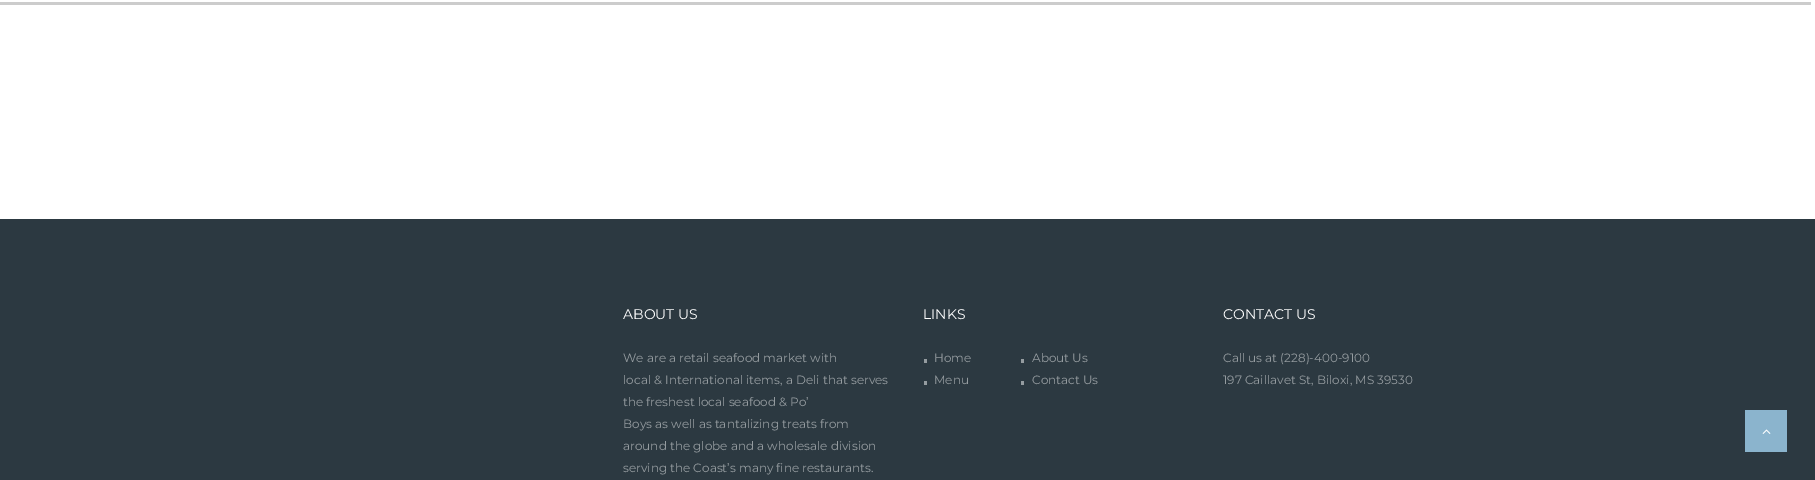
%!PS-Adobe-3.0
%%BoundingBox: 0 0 1815 480
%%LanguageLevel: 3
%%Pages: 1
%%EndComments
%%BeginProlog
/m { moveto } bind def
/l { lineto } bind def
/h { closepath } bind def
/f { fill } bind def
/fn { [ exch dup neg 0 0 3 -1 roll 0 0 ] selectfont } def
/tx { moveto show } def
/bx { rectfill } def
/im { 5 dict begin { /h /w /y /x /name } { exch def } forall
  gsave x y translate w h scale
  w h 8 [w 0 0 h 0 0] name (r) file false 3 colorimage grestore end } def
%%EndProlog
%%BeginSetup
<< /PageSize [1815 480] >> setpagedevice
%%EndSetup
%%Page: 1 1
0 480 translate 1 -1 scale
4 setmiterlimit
1 setgray
0 0 1815 480 bx
0.8 setgray
-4 -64 m -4 5 l 1811 5 l 1811 2 l 0 2 l 0 -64 l h f
0.173 0.224 0.255 setrgbcolor
0 219 1815 261 bx
/Montserrat-Regular 14 fn
1 setgray
(ABOUT US) 623 319 tx
/Montserrat-Regular 12 fn
0.584 0.612 0.627 setrgbcolor
(We are a retail seafood market with) 623 362 tx
(local & International items, a Deli that serves) 623 384 tx
(the freshest local seafood & Po’) 623 406 tx
(Boys as well as tantalizing treats from) 623 428 tx
(around the globe and a wholesale division) 623 450 tx
(serving the Coast’s many fine restaurants.) 623 472 tx
/Montserrat-Regular 14 fn
1 setgray
(LINKS) 923 319 tx
0.584 0.612 0.627 setrgbcolor
924 359 3 4 bx
/Montserrat-Regular 12 fn
(Home) 934 362 tx
1021 359 3 4 bx
(About Us) 1032 362 tx
924 381 3 4 bx
(Menu) 934 384 tx
1021 381 3 4 bx
(Contact Us) 1032 384 tx
/Montserrat-Regular 14 fn
1 setgray
(CONTACT US) 1223 319 tx
/Montserrat-Regular 12 fn
0.584 0.612 0.627 setrgbcolor
(Call us at \(228\)-400-9100) 1223 362 tx
(197 Caillavet St, Biloxi, MS 39530) 1223 384 tx
0.545 0.706 0.804 setrgbcolor
1745 410 42 42 bx
(image0.raw) 1762 429 9 5 im
showpage
%%EOF
